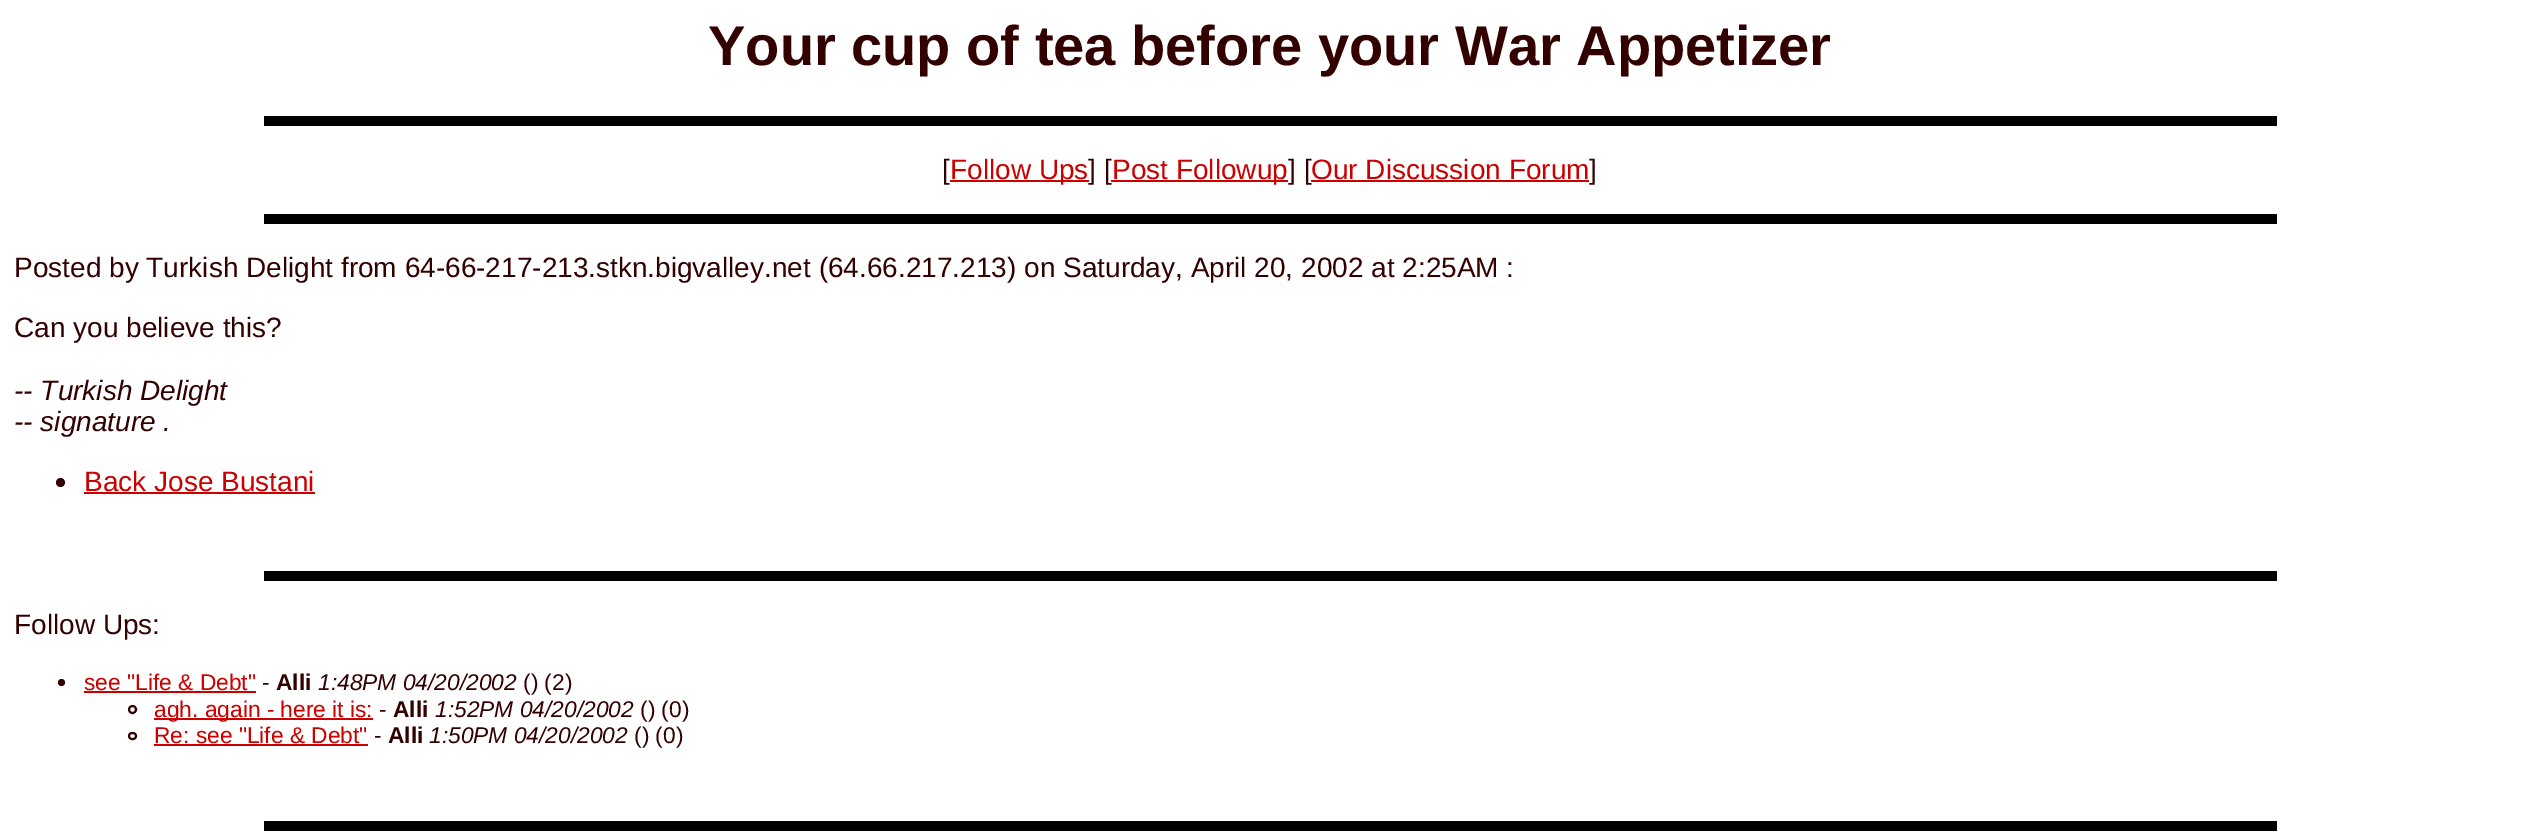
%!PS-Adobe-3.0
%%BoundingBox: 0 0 2539 840
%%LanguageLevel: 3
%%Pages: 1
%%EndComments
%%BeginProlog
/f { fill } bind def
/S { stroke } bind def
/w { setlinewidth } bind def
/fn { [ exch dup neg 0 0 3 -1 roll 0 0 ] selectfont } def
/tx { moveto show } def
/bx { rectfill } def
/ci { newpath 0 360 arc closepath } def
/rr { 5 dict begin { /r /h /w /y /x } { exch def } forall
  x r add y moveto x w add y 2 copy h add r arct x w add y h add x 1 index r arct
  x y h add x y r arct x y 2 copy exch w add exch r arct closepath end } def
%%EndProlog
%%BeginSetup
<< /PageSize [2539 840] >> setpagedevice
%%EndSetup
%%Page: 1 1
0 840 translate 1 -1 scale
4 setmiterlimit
1 setgray
0 0 2539 840 bx
/LiberationSans-Bold 56 fn
0.2 0 0 setrgbcolor
(Your cup of tea before your War Appetizer) 708 65 tx
0 setgray
264 116 2013 10 bx
/LiberationSans-Regular 28 fn
0.2 0 0 setrgbcolor
([) 942 179 tx
0.8 0 0 setrgbcolor
950 180 139 2 bx
(Follow Ups) 950 179 tx
0.2 0 0 setrgbcolor
(] [) 1088 179 tx
0.8 0 0 setrgbcolor
1111 180 177 2 bx
(Post Followup) 1112 179 tx
0.2 0 0 setrgbcolor
(] [) 1288 179 tx
0.8 0 0 setrgbcolor
(Our Discussion Forum) 1311 179 tx
1311 180 278 2 bx
0.2 0 0 setrgbcolor
(]) 1589 179 tx
0 setgray
264 214 2013 10 bx
0.2 0 0 setrgbcolor
(Posted by Turkish Delight from 64-66-217-213.stkn.bigvalley.net \(64.66.217.213\) on Saturday, April 20, 2002 at 2:25AM :) 14 277 tx
(Can you believe this?) 14 337 tx
/LiberationSans-Italic 28 fn
(-- Turkish Delight) 14 400 tx
(-- signature .) 14 431 tx
60.5 482.5 4.5 ci f
/LiberationSans-Regular 28 fn
0.8 0 0 setrgbcolor
(Back Jose Bustani) 84 491 tx
84 492 231 2 bx
0 setgray
264 571 2013 10 bx
0.2 0 0 setrgbcolor
(Follow Ups:) 14 634 tx
61.5 682.5 3.5 ci f
/LiberationSans-Regular 22.75 fn
0.8 0 0 setrgbcolor
(see "Life & Debt") 84 690 tx
84 691 172 2 bx
0.2 0 0 setrgbcolor
(-) 262 690 tx
/LiberationSans-Bold 22.75 fn
(Alli) 276 690 tx
/LiberationSans-Italic 22.75 fn
(1:48PM 04/20/2002) 318 690 tx
/LiberationSans-Regular 22.75 fn
(\(\) \(2\)) 523 690 tx
2 w
132.5 709.5 3.5 ci S
0.8 0 0 setrgbcolor
154 718 219 2 bx
(agh. again - here it is:) 154 717 tx
0.2 0 0 setrgbcolor
(-) 379 717 tx
/LiberationSans-Bold 22.75 fn
(Alli) 393 717 tx
/LiberationSans-Italic 22.75 fn
(1:52PM 04/20/2002) 435 717 tx
/LiberationSans-Regular 22.75 fn
(\(\) \(0\)) 640 717 tx
129 733 7 6 3 rr S
0.8 0 0 setrgbcolor
(Re: see "Life & Debt") 154 743 tx
154 744 214 2 bx
0.2 0 0 setrgbcolor
(-) 374 743 tx
/LiberationSans-Bold 22.75 fn
(Alli) 388 743 tx
/LiberationSans-Italic 22.75 fn
(1:50PM 04/20/2002) 429 743 tx
/LiberationSans-Regular 22.75 fn
(\(\) \(0\)) 634 743 tx
0 setgray
264 821 2013 10 bx
showpage
%%EOF
